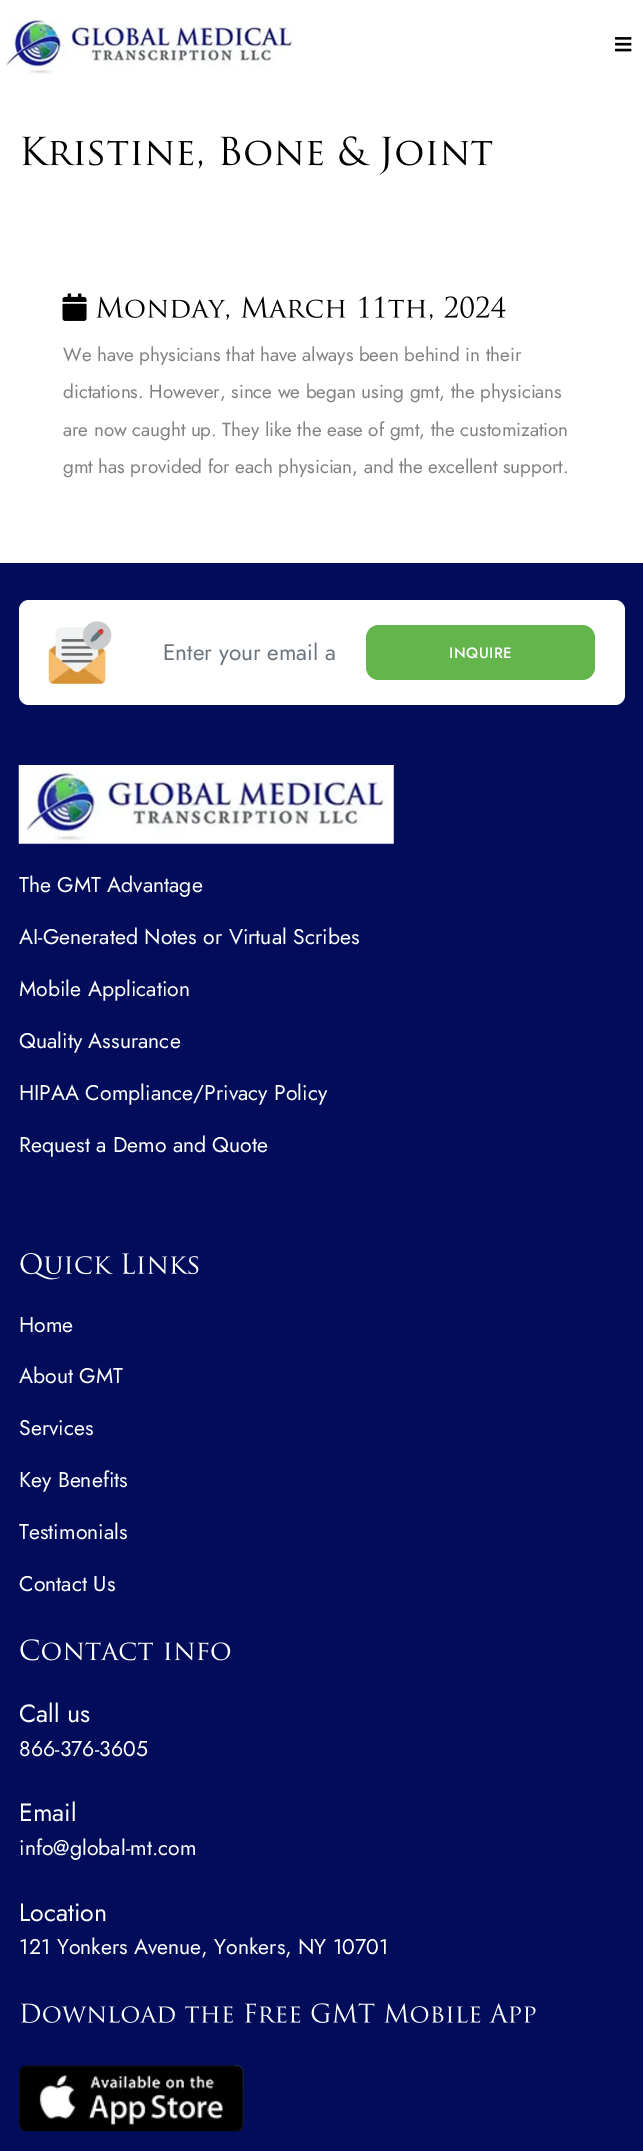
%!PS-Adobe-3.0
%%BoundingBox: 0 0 643 2151
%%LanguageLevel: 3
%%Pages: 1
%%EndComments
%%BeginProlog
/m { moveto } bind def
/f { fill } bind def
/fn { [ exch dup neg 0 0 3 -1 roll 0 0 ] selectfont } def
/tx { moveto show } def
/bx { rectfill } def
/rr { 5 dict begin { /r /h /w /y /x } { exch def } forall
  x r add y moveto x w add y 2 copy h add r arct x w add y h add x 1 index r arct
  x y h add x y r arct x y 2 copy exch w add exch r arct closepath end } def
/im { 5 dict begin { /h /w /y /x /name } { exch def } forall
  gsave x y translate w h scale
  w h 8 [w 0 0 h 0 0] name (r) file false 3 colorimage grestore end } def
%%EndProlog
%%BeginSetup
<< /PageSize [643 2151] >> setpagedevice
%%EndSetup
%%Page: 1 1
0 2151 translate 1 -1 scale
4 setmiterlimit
1 setgray
0 0 643 2151 bx
(image0.raw) 6 19 288 55 im
(image1.raw) 615 37 17 15 im
(image2.raw) 22 136 471 39 im
(image3.raw) 62 293 25 28 im
(image4.raw) 96 296 410 24 im
/Jost-Regular 18.75 fn
0.51 setgray
(We have physicians that have always been behind in their) 63 361 tx
(dictations. However, since we began using gmt, the physicians) 63 398 tx
(are now caught up. They like the ease of gmt, the customization) 63 436 tx
(gmt has provided for each physician, and the excellent support.) 63 473 tx
0.004 0.047 0.353 setrgbcolor
0 563 643 1588 bx
1 setgray
19 600 606 105 10 rr f
(image5.raw) 48 621 64 63 im
/Jost-Regular 22.5 fn
0.424 0.459 0.49 setrgbcolor
(Enter your email a) 163 660 tx
0.388 0.71 0.298 setrgbcolor
366 625 229 55 13 rr f
/Jost-Medium 15 fn
1 setgray
449 658 m 0.5 0 (INQUIRE) ashow
(image6.raw) 18 765 376 79 im
/Jost-Regular 21.25 fn
(The GMT Advantage) 19 892 tx
(AI-Generated Notes or Virtual Scribes) 19 944 tx
(Mobile Application) 19 996 tx
(Quality Assurance) 19 1048 tx
(HIPAA Compliance/Privacy Policy) 19 1100 tx
(Request a Demo and Quote) 19 1152 tx
(image7.raw) 20 1253 179 27 im
(Home) 19 1332 tx
(About GMT) 19 1383 tx
(Services) 19 1435 tx
(Key Benefits) 19 1487 tx
(Testimonials) 19 1539 tx
(Contact Us) 19 1591 tx
(image8.raw) 20 1639 211 22 im
/Jost-Regular 25 fn
(Call us) 19 1722 tx
/Jost-Regular 21.25 fn
(866-376-3605) 19 1756 tx
/Jost-Regular 25 fn
(Email) 19 1821 tx
/Jost-Regular 21.25 fn
(info@global-mt.com) 19 1855 tx
/Jost-Regular 25 fn
(Location) 19 1921 tx
/Jost-Regular 21.25 fn
(121 Yonkers Avenue, Yonkers, NY 10701) 19 1954 tx
(image9.raw) 21 2003 515 20 im
(image10.raw) 18 2065 226 67 im
showpage
%%EOF
